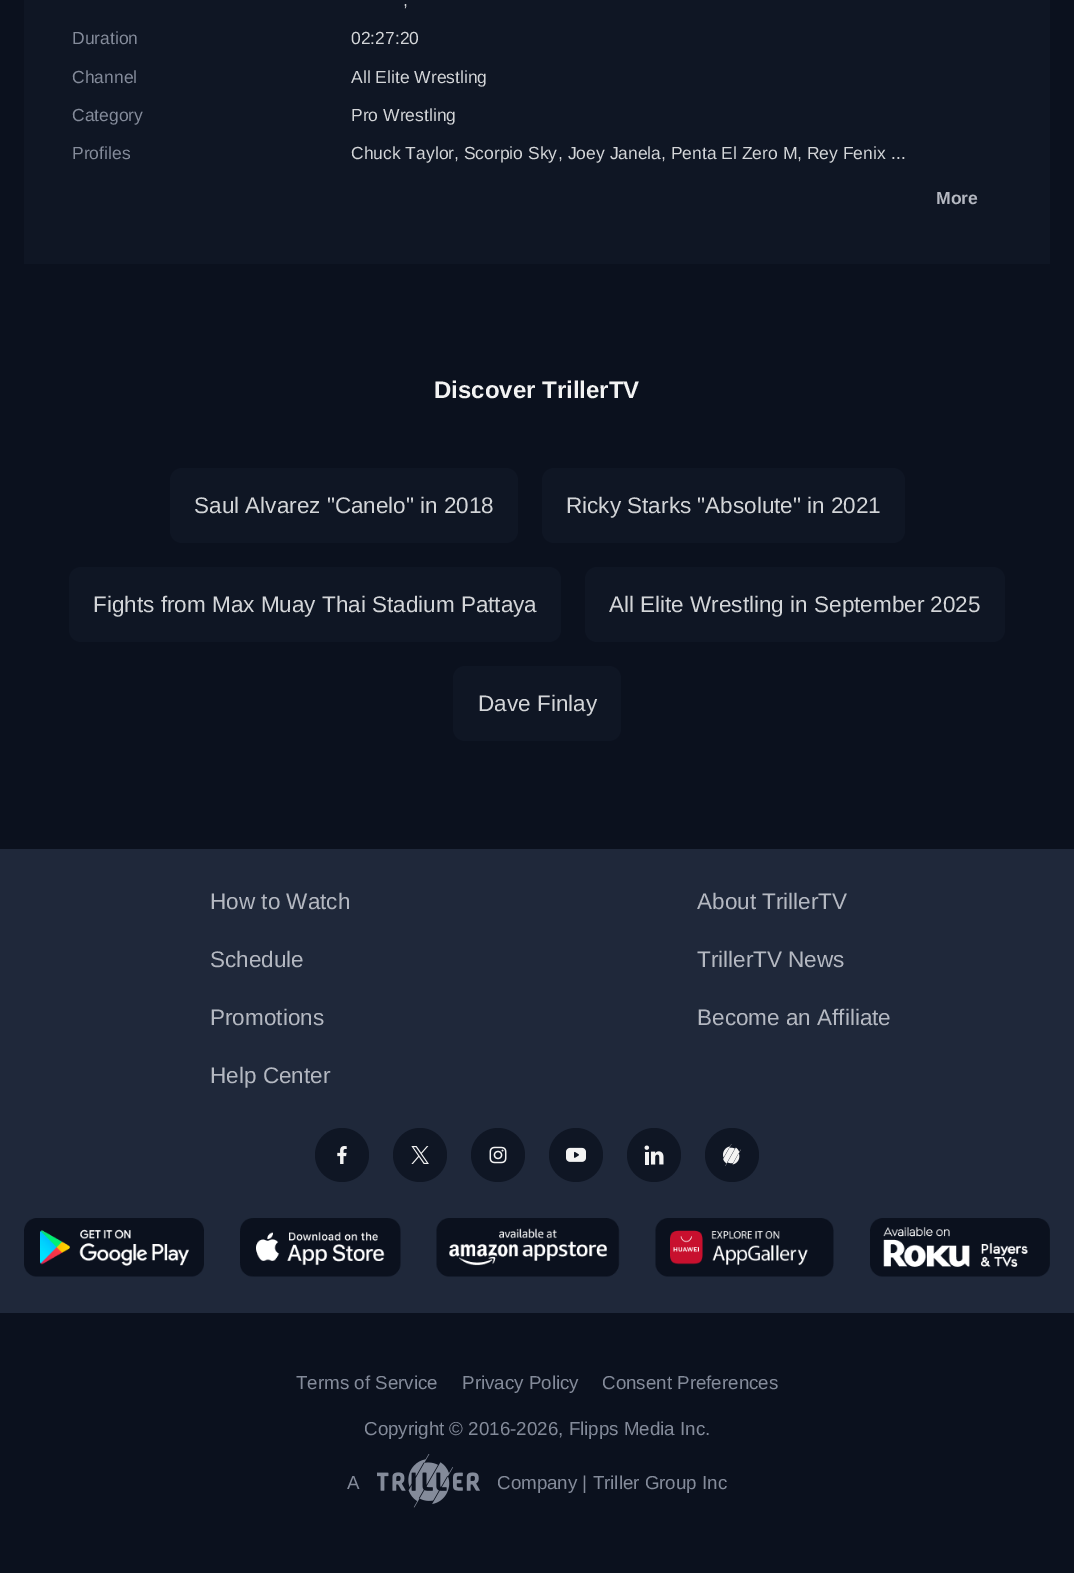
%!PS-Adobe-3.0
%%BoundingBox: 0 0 1074 1573
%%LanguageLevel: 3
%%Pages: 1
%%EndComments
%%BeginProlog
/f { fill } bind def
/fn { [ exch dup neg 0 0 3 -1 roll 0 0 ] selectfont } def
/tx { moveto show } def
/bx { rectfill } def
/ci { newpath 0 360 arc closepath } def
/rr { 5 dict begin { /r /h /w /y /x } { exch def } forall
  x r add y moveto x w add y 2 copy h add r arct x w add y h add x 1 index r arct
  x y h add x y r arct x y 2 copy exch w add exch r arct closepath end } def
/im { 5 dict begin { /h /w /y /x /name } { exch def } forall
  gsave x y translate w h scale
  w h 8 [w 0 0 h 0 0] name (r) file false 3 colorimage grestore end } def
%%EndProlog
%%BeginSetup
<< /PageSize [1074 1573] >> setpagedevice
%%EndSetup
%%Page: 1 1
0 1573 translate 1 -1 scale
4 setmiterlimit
0.043 0.067 0.118 setrgbcolor
0 0 1074 1573 bx
0.059 0.086 0.141 setrgbcolor
24 0 1026 264 bx
/LiberationSans-Regular 17.5 fn
0.827 0.835 0.847 setrgbcolor
(,) 403 6 tx
0.518 0.545 0.604 setrgbcolor
(Duration) 72 44 tx
0.827 0.835 0.847 setrgbcolor
(02:27:20) 351 44 tx
0.518 0.545 0.604 setrgbcolor
(Channel) 72 83 tx
0.827 0.835 0.847 setrgbcolor
(All Elite Wrestling) 351 83 tx
0.518 0.545 0.604 setrgbcolor
(Category) 72 121 tx
0.827 0.835 0.847 setrgbcolor
(Pro Wrestling) 351 121 tx
0.518 0.545 0.604 setrgbcolor
(Profiles) 72 159 tx
0.827 0.835 0.847 setrgbcolor
(Chuck Taylor) 351 159 tx
(, Scorpio Sky) 454 159 tx
(, Joey Janela) 558 159 tx
(, Penta El Zero M) 661 159 tx
(, Rey Fenix) 797 159 tx
(...) 891 159 tx
/LiberationSans-Bold 17.5 fn
0.706 0.722 0.757 setrgbcolor
(More) 936 204 tx
/LiberationSans-Bold 24 fn
0.953 setgray
(Discover TrillerTV) 434 398 tx
0.059 0.086 0.141 setrgbcolor
170 468 348 75 12 rr f
/LiberationSans-Regular 22.5 fn
0.827 0.835 0.847 setrgbcolor
(Saul Alvarez "Canelo" in 2018) 194 513 tx
0.059 0.086 0.141 setrgbcolor
542 468 363 75 12 rr f
0.827 0.835 0.847 setrgbcolor
(Ricky Starks "Absolute" in 2021) 566 513 tx
0.059 0.086 0.141 setrgbcolor
69 567 492 75 12 rr f
0.827 0.835 0.847 setrgbcolor
(Fights from Max Muay Thai Stadium Pattaya) 93 612 tx
0.059 0.086 0.141 setrgbcolor
585 567 420 75 12 rr f
0.827 0.835 0.847 setrgbcolor
(All Elite Wrestling in September 2025) 609 612 tx
0.059 0.086 0.141 setrgbcolor
453 666 168 75 12 rr f
0.827 0.835 0.847 setrgbcolor
(Dave Finlay) 478 711 tx
0.122 0.157 0.227 setrgbcolor
0 849 1074 464 bx
0.706 0.722 0.757 setrgbcolor
(How to Watch) 210 909 tx
(Schedule) 210 967 tx
(Promotions) 210 1025 tx
(Help Center) 210 1083 tx
(About TrillerTV) 697 909 tx
(TrillerTV News) 697 967 tx
(Become an Affiliate) 697 1025 tx
0.059 0.086 0.141 setrgbcolor
342 1155 27 ci f
(image0.raw) 337 1146 10 18 im
420 1155 27 ci f
(image1.raw) 411 1146 18 18 im
498 1155 27 ci f
(image2.raw) 489 1146 18 18 im
576 1155 27 ci f
(image3.raw) 566 1147 20 15 im
654 1155 27 ci f
(image4.raw) 644 1145 20 20 im
732 1155 27 ci f
(image5.raw) 723 1144 18 22 im
(image6.raw) 24 1218 180 59 im
(image7.raw) 240 1218 161 59 im
(image8.raw) 436 1218 184 59 im
(image9.raw) 655 1218 179 59 im
(image10.raw) 870 1218 180 59 im
/LiberationSans-Regular 18.75 fn
0.518 0.545 0.604 setrgbcolor
(Terms of Service) 296 1389 tx
(Privacy Policy) 462 1389 tx
(Consent Preferences) 602 1389 tx
(Copyright © 2016-2026, Flipps Media Inc.) 364 1435 tx
(A) 347 1489 tx
(image11.raw) 377 1454 103 54 im
(Company | Triller Group Inc) 497 1489 tx
showpage
%%EOF
